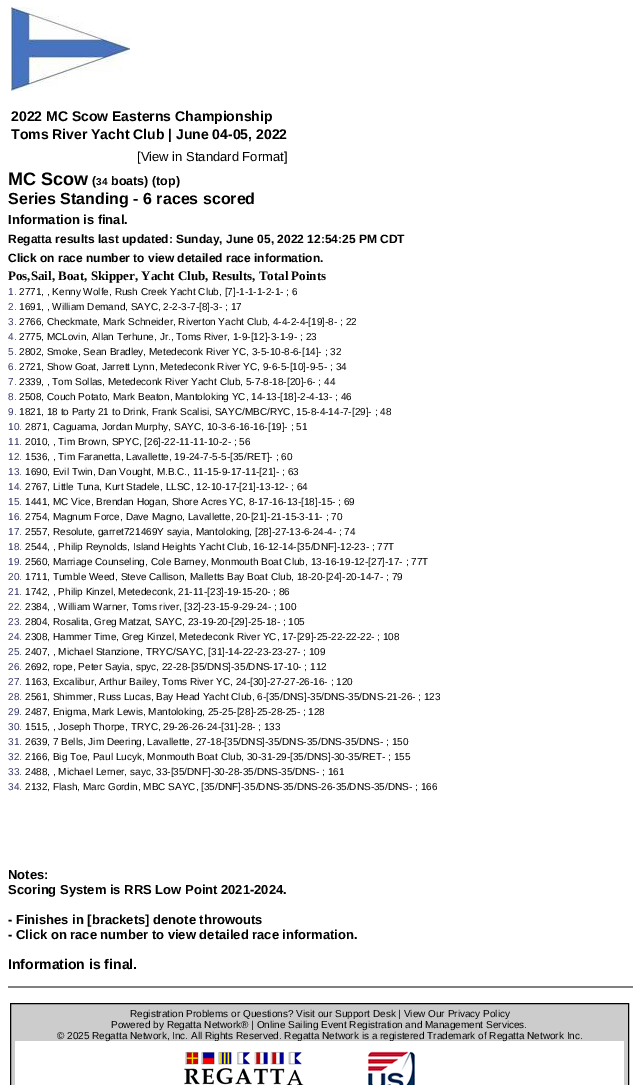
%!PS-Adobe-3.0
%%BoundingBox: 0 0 639 1085
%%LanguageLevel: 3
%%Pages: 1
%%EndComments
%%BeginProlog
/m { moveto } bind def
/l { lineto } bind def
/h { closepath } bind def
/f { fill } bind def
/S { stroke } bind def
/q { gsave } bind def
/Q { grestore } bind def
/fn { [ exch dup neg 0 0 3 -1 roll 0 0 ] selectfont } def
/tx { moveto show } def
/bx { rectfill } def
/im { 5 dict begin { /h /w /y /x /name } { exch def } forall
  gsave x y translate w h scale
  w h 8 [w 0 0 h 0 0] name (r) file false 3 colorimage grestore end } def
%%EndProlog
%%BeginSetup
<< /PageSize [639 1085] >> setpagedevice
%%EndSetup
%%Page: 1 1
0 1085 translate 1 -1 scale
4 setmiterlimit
1 setgray
0 0 639 1085 bx
(image0.raw) 11 7 119 84 im
/LiberationSans-Bold 14 fn
0 setgray
(2022 MC Scow Easterns Championship) 11 121 tx
(Toms River Yacht Club | June 04-05, 2022) 11 139 tx
/LiberationSans-Regular 13 fn
([View in Standard Format]) 137 161 tx
/LiberationSans-Bold 18 fn
(MC Scow) 8 185 tx
/LiberationSans-Bold 12.5 fn
(\() 92 185 tx
/LiberationSans-Bold 10 fn
(34) 96 185 tx
/LiberationSans-Bold 12.5 fn
(boats\) \(top\)) 111 185 tx
/LiberationSans-Bold 16 fn
(Series Standing - 6 races scored) 8 204 tx
/LiberationSans-Bold 13 fn
(Information is final.) 8 224 tx
/LiberationSans-Bold 12 fn
(Regatta results last updated: Sunday, June 05, 2022 12:54:25 PM CDT) 8 243 tx
(Click on race number to view detailed race information.) 8 262 tx
/LiberationSerif-Bold 13 fn
(Pos,Sail, Boat, Skipper, Yacht Club, Results, Total Points) 8 280 tx
/LiberationSans-Regular 10 fn
0.2 0.2 0.4 setrgbcolor
(1.) 8 295 tx
0 setgray
(2771, , Kenny Wolfe, Rush Creek Yacht Club, [7]-1-1-1-2-1- ; 6) 19 295 tx
0.2 0.2 0.4 setrgbcolor
(2.) 8 310 tx
0 setgray
(1691, , William Demand, SAYC, 2-2-3-7-[8]-3- ; 17) 19 310 tx
0.2 0.2 0.4 setrgbcolor
(3.) 8 325 tx
0 setgray
(2766, Checkmate, Mark Schneider, Riverton Yacht Club, 4-4-2-4-[19]-8- ; 22) 19 325 tx
0.2 0.2 0.4 setrgbcolor
(4.) 8 340 tx
0 setgray
(2775, MCLovin, Allan Terhune, Jr., Toms River, 1-9-[12]-3-1-9- ; 23) 19 340 tx
0.2 0.2 0.4 setrgbcolor
(5.) 8 355 tx
0 setgray
(2802, Smoke, Sean Bradley, Metedeconk River YC, 3-5-10-8-6-[14]- ; 32) 19 355 tx
0.2 0.2 0.4 setrgbcolor
(6.) 8 370 tx
0 setgray
(2721, Show Goat, Jarrett Lynn, Metedeconk River YC, 9-6-5-[10]-9-5- ; 34) 19 370 tx
0.2 0.2 0.4 setrgbcolor
(7.) 8 385 tx
0 setgray
(2339, , Tom Sollas, Metedeconk River Yacht Club, 5-7-8-18-[20]-6- ; 44) 19 385 tx
0.2 0.2 0.4 setrgbcolor
(8.) 8 400 tx
0 setgray
(2508, Couch Potato, Mark Beaton, Mantoloking YC, 14-13-[18]-2-4-13- ; 46) 19 400 tx
0.2 0.2 0.4 setrgbcolor
(9.) 8 415 tx
0 setgray
(1821, 18 to Party 21 to Drink, Frank Scalisi, SAYC/MBC/RYC, 15-8-4-14-7-[29]- ; 48) 19 415 tx
0.2 0.2 0.4 setrgbcolor
(10.) 8 430 tx
0 setgray
(2871, Caguama, Jordan Murphy, SAYC, 10-3-6-16-16-[19]- ; 51) 25 430 tx
0.2 0.2 0.4 setrgbcolor
(11.) 8 445 tx
0 setgray
(2010, , Tim Brown, SPYC, [26]-22-11-11-10-2- ; 56) 25 445 tx
0.2 0.2 0.4 setrgbcolor
(12.) 8 460 tx
0 setgray
(1536, , Tim Faranetta, Lavallette, 19-24-7-5-5-[35/RET]- ; 60) 25 460 tx
0.2 0.2 0.4 setrgbcolor
(13.) 8 475 tx
0 setgray
(1690, Evil Twin, Dan Vought, M.B.C., 11-15-9-17-11-[21]- ; 63) 25 475 tx
0.2 0.2 0.4 setrgbcolor
(14.) 8 490 tx
0 setgray
(2767, Little Tuna, Kurt Stadele, LLSC, 12-10-17-[21]-13-12- ; 64) 25 490 tx
0.2 0.2 0.4 setrgbcolor
(15.) 8 505 tx
0 setgray
(1441, MC Vice, Brendan Hogan, Shore Acres YC, 8-17-16-13-[18]-15- ; 69) 25 505 tx
0.2 0.2 0.4 setrgbcolor
(16.) 8 520 tx
0 setgray
(2754, Magnum Force, Dave Magno, Lavallette, 20-[21]-21-15-3-11- ; 70) 25 520 tx
0.2 0.2 0.4 setrgbcolor
(17.) 8 535 tx
0 setgray
(2557, Resolute, garret721469Y sayia, Mantoloking, [28]-27-13-6-24-4- ; 74) 25 535 tx
0.2 0.2 0.4 setrgbcolor
(18.) 8 550 tx
0 setgray
(2544, , Philip Reynolds, Island Heights Yacht Club, 16-12-14-[35/DNF]-12-23- ; 77T) 25 550 tx
0.2 0.2 0.4 setrgbcolor
(19.) 8 565 tx
0 setgray
(2560, Marriage Counseling, Cole Barney, Monmouth Boat Club, 13-16-19-12-[27]-17- ; 77T) 25 565 tx
0.2 0.2 0.4 setrgbcolor
(20.) 8 580 tx
0 setgray
(1711, Tumble Weed, Steve Callison, Malletts Bay Boat Club, 18-20-[24]-20-14-7- ; 79) 25 580 tx
0.2 0.2 0.4 setrgbcolor
(21.) 8 595 tx
0 setgray
(1742, , Philip Kinzel, Metedeconk, 21-11-[23]-19-15-20- ; 86) 25 595 tx
0.2 0.2 0.4 setrgbcolor
(22.) 8 610 tx
0 setgray
(2384, , William Warner, Toms river, [32]-23-15-9-29-24- ; 100) 25 610 tx
0.2 0.2 0.4 setrgbcolor
(23.) 8 625 tx
0 setgray
(2804, Rosalita, Greg Matzat, SAYC, 23-19-20-[29]-25-18- ; 105) 25 625 tx
0.2 0.2 0.4 setrgbcolor
(24.) 8 640 tx
0 setgray
(2308, Hammer Time, Greg Kinzel, Metedeconk River YC, 17-[29]-25-22-22-22- ; 108) 25 640 tx
0.2 0.2 0.4 setrgbcolor
(25.) 8 655 tx
0 setgray
(2407, , Michael Stanzione, TRYC/SAYC, [31]-14-22-23-23-27- ; 109) 25 655 tx
0.2 0.2 0.4 setrgbcolor
(26.) 8 670 tx
0 setgray
(2692, rope, Peter Sayia, spyc, 22-28-[35/DNS]-35/DNS-17-10- ; 112) 25 670 tx
0.2 0.2 0.4 setrgbcolor
(27.) 8 685 tx
0 setgray
(1163, Excalibur, Arthur Bailey, Toms River YC, 24-[30]-27-27-26-16- ; 120) 25 685 tx
0.2 0.2 0.4 setrgbcolor
(28.) 8 700 tx
0 setgray
(2561, Shimmer, Russ Lucas, Bay Head Yacht Club, 6-[35/DNS]-35/DNS-35/DNS-21-26- ; 123) 25 700 tx
0.2 0.2 0.4 setrgbcolor
(29.) 8 715 tx
0 setgray
(2487, Enigma, Mark Lewis, Mantoloking, 25-25-[28]-25-28-25- ; 128) 25 715 tx
0.2 0.2 0.4 setrgbcolor
(30.) 8 730 tx
0 setgray
(1515, , Joseph Thorpe, TRYC, 29-26-26-24-[31]-28- ; 133) 25 730 tx
0.2 0.2 0.4 setrgbcolor
(31.) 8 745 tx
0 setgray
(2639, 7 Bells, Jim Deering, Lavallette, 27-18-[35/DNS]-35/DNS-35/DNS-35/DNS- ; 150) 25 745 tx
0.2 0.2 0.4 setrgbcolor
(32.) 8 760 tx
0 setgray
(2166, Big Toe, Paul Lucyk, Monmouth Boat Club, 30-31-29-[35/DNS]-30-35/RET- ; 155) 25 760 tx
0.2 0.2 0.4 setrgbcolor
(33.) 8 775 tx
0 setgray
(2488, , Michael Lerner, sayc, 33-[35/DNF]-30-28-35/DNS-35/DNS- ; 161) 25 775 tx
0.2 0.2 0.4 setrgbcolor
(34.) 8 790 tx
0 setgray
(2132, Flash, Marc Gordin, MBC SAYC, [35/DNF]-35/DNS-35/DNS-26-35/DNS-35/DNS- ; 166) 25 790 tx
/LiberationSans-Bold 13 fn
(Notes:) 8 879 tx
(Scoring System is RRS Low Point 2021-2024.) 8 894 tx
(- Finishes in [brackets] denote throwouts) 8 924 tx
(- Click on race number to view detailed race information.) 8 939 tx
/LiberationSans-Bold 14 fn
(Information is final.) 8 969 tx
0.502 setgray
8 986 625 2 bx
0.8 setgray
10.5 1003.5 m 628.5 1003.5 l 628.5 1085.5 l 10.5 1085.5 l h q f Q
0 setgray
S
/LiberationSans-Regular 10 fn
(Registration Problems or Questions? Visit our Support Desk | View Our Privacy Policy) 130 1017 tx
(Powered by Regatta Network® | Online Sailing Event Registration and Management Services.) 111 1028 tx
1 setgray
15 1041 609 44 bx
0 setgray
(© 2025 Regatta Network, Inc. All Rights Reserved. Regatta Network is a registered Trademark of Regatta Network Inc.) 57 1039 tx
(image1.raw) 184 1041 120 44 im
(image2.raw) 368 1041 47 44 im
showpage
%%EOF
